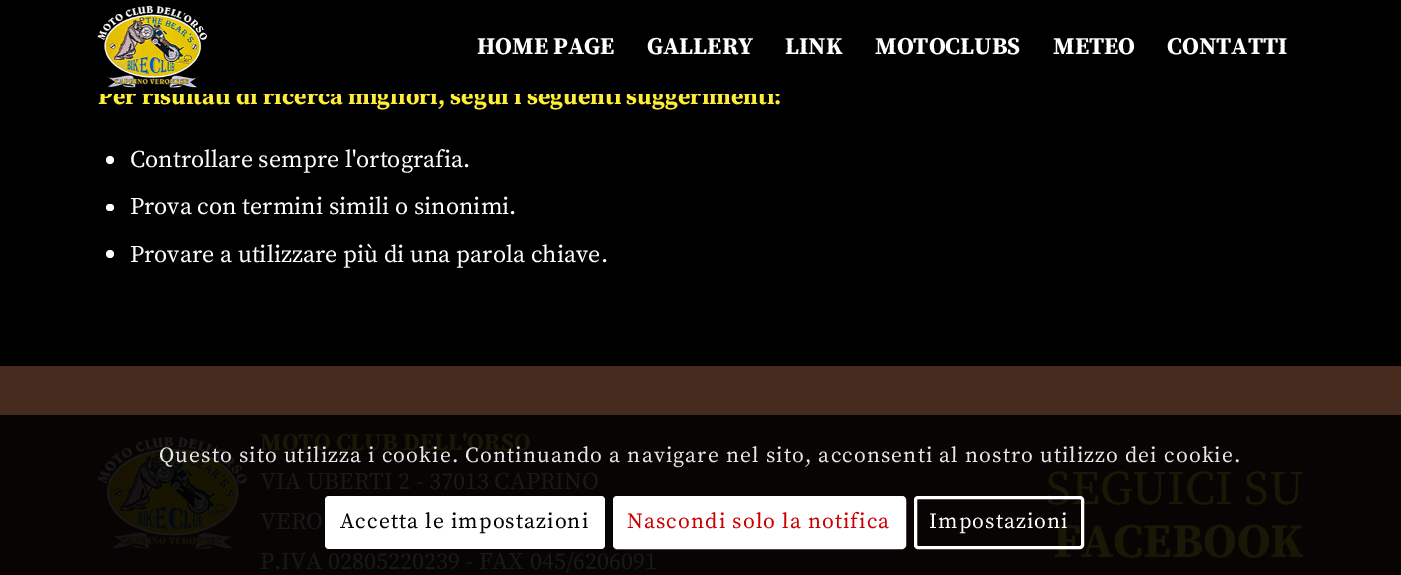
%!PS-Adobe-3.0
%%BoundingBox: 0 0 1401 575
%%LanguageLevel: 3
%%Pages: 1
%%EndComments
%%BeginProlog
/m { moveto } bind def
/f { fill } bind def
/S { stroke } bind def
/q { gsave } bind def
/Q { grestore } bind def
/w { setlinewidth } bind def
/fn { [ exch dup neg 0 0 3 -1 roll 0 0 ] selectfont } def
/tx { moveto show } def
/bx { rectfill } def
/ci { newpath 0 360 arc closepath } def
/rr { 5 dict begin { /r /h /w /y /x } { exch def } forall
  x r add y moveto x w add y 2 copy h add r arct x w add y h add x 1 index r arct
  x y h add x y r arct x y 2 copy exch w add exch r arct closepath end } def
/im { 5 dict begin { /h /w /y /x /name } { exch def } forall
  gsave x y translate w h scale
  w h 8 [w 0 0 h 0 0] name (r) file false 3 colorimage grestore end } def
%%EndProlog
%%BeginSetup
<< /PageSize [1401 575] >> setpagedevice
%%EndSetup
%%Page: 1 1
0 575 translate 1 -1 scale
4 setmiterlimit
0 setgray
0 0 1401 575 bx
/SourceSerifPro-Bold 24 fn
1 0.933 0.22 setrgbcolor
(Per risultati di ricerca migliori, segui i seguenti suggerimenti:) 98 104 tx
0 setgray
98 86 682 8 bx
(image0.raw) 97 5 110 83 im
1 setgray
(HOME PAGE) 477 54 tx
(GALLERY) 647 54 tx
(LINK) 785 54 tx
(MOTOCLUBS) 875 54 tx
(METEO) 1053 54 tx
(CONTATTI) 1167 54 tx
110 160 4 ci f
/SourceSerifPro-Regular 24 fn
(Controllare sempre l'ortografia.) 130 167 tx
106 204 8 7 3.5 rr f
(Prova con termini simili o sinonimi.) 130 214 tx
110 254 4 ci f
(Provare a utilizzare più di una parola chiave.) 130 262 tx
0.278 0.169 0.122 setrgbcolor
0 366 1401 49 bx
0.027 0.016 0.012 setrgbcolor
0 415 1401 160 bx
(image1.raw) 97 436 150 114 im
/SourceSerifPro-Bold 24 fn
0.098 0.094 0.024 setrgbcolor
(MOTO CLUB DELL'ORSO) 260 450 tx
/SourceSerifPro-Regular 24 fn
0.098 setgray
(VIA UBERTI 2 - 37013 CAPRINO) 260 489 tx
(VERO) 260 529 tx
(P.IVA 02805220239 - FAX 045/6206091) 260 569 tx
/SourceSerifPro-Regular 48 fn
0.098 0.094 0.024 setrgbcolor
(SEGUICI SU) 1046 504 tx
/SourceSerifPro-Bold 48 fn
(FACEBOOK) 1053 557 tx
/SourceSerifPro-Regular 21.6 fn
0.902 setgray
159 462 m 1.08 0 (Questo sito utilizza i cookie. Continuando a navigare nel sito, acconsenti al nostro utilizzo dei cookie.) ashow
1 setgray
325 496 280 53 4 rr f
0 setgray
340 528 m 1.08 0 (Accetta le impostazioni) ashow
1 setgray
614.5 497.5 290 50 2.5 rr q f Q
3 w
S
0.8 0 0 setrgbcolor
627 528 m 1.08 0 (Nascondi solo la notifica) ashow
1 setgray
915.5 497.5 167 50 2.5 rr S
929 528 m 1.08 0 (Impostazioni) ashow
showpage
%%EOF
